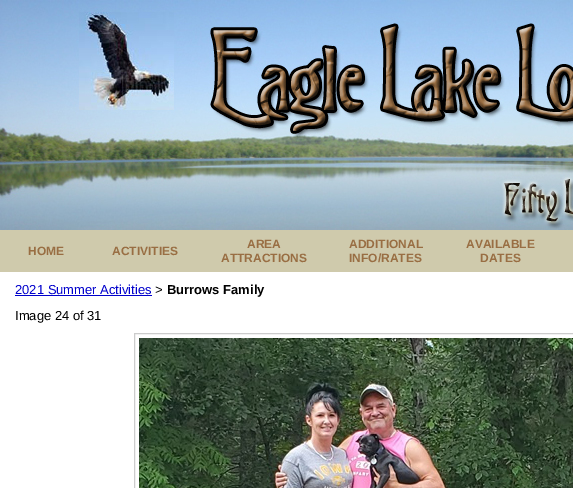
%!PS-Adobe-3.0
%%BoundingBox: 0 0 573 488
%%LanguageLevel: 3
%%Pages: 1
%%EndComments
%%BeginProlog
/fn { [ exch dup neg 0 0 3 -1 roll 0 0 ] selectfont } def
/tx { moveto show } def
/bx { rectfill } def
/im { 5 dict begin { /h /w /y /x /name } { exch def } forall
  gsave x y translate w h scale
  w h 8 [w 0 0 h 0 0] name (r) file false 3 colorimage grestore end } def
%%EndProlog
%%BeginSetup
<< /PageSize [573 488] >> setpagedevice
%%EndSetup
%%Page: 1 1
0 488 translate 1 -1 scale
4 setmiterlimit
1 setgray
0 0 573 488 bx
(image0.raw) 0 0 573 230 im
0.812 0.792 0.675 setrgbcolor
0 230 573 42 bx
/LiberationSans-Bold 12 fn
0.6 0.431 0.263 setrgbcolor
(HOME) 28 255 tx
(ACTIVITIES) 112 255 tx
(AREA) 247 248 tx
(ATTRACTIONS) 221 262 tx
(ADDITIONAL) 349 248 tx
(INFO/RATES) 349 262 tx
(AVAILABLE) 466 248 tx
(DATES) 480 262 tx
/LiberationSans-Regular 13 fn
0 0 0.8 setrgbcolor
(2021 Summer Activities) 15 294 tx
15 295 137 1 bx
/LiberationMono-Regular 13 fn
0 setgray
(>) 155 294 tx
/LiberationSans-Bold 13 fn
(Burrows Family) 167 294 tx
/LiberationSans-Regular 13 fn
(Image 24 of 31) 15 320 tx
0.8 setgray
134.5 333.5 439 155 rectstroke
(image1.raw) 139 338 434 150 im
showpage
%%EOF
